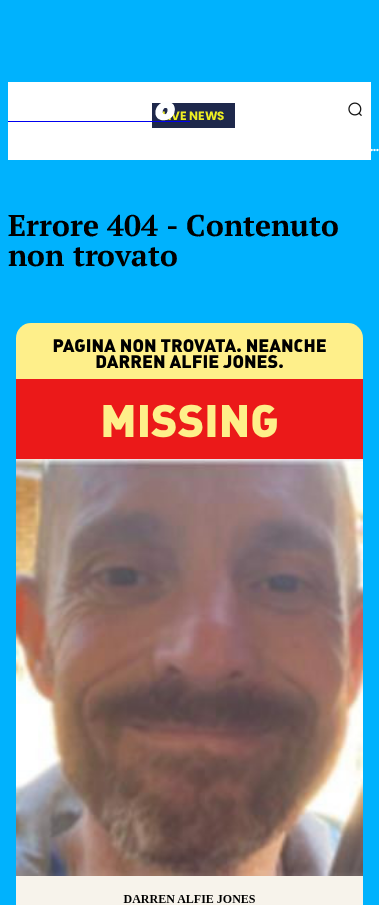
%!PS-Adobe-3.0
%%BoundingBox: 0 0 379 905
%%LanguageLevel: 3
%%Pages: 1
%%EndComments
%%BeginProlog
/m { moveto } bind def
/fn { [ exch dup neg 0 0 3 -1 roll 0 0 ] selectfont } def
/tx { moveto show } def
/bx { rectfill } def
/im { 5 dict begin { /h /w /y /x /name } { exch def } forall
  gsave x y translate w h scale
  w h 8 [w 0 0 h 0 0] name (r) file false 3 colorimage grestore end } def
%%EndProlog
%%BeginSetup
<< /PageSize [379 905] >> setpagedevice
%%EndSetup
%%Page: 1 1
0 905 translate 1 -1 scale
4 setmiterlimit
0 0.698 0.992 setrgbcolor
0 0 379 905 bx
1 setgray
8 82 363 78 bx
0.118 0.157 0.294 setrgbcolor
152 103 83 25 bx
/Poppins-Bold 12 fn
0.933 0.933 0.133 setrgbcolor
(LIVE NEWS) 162 120 tx
/Poppins-BlackItalic 32 fn
0.988 0.996 1 setrgbcolor
155 120 m -2 0 (o) ashow
0 0 0.933 setrgbcolor
8 121 182 1 bx
(image0.raw) 348 102 14 14 im
/Poppins-Bold 12 fn
0.988 0.996 1 setrgbcolor
(…) 370 151 tx
/PTSerif-Bold 30 fn
0 setgray
(Errore 404 - Contenuto) 8 236 tx
(non trovato) 8 266 tx
(image1.raw) 16 323 347 582 im
showpage
%%EOF
